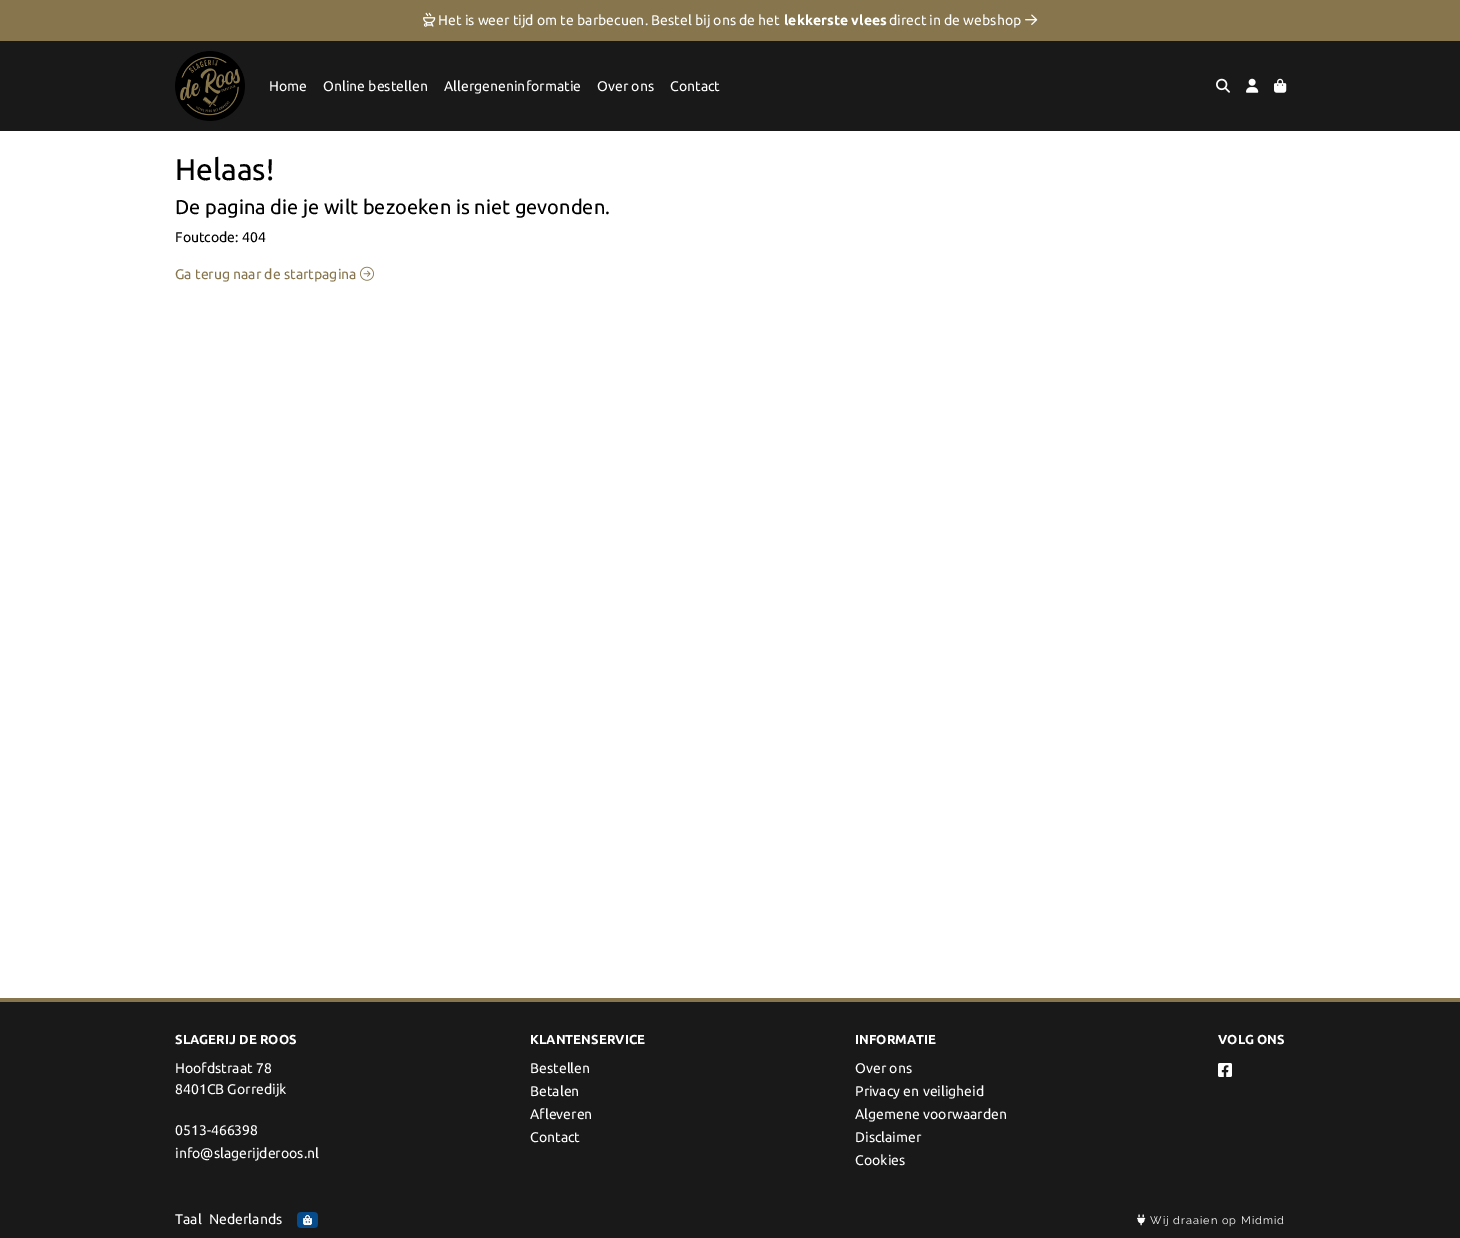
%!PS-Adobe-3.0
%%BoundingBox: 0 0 1460 1238
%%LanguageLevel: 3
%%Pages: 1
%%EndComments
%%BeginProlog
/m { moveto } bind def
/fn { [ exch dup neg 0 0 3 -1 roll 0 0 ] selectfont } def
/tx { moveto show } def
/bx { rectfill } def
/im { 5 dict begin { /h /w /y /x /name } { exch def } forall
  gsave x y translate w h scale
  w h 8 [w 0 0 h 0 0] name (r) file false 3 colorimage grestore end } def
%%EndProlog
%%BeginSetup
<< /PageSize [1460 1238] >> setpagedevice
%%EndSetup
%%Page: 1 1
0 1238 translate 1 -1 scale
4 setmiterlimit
1 setgray
0 0 1460 1238 bx
0.525 0.459 0.302 setrgbcolor
0 0 1460 41 bx
(image0.raw) 423 12 13 15 im
/Ubuntu-Regular 14 fn
1 setgray
(Het is weer tijd om te barbecuen. Bestel bij ons de het) 438 25 tx
/Ubuntu-Bold 14 fn
(lekkerste vlees) 784 25 tx
/Ubuntu-Regular 14 fn
(direct in de webshop) 889 25 tx
(image1.raw) 1025 14 13 11 im
0.098 setgray
0 41 1460 90 bx
(image2.raw) 175 51 70 70 im
1 setgray
(Home) 269 91 tx
(Online bestellen) 323 91 tx
(Allergeneninformatie) 444 91 tx
(Over ons) 597 91 tx
(Contact) 670 91 tx
(image3.raw) 1216 78 14 15 im
(image4.raw) 1246 78 13 15 im
(image5.raw) 1274 78 13 15 im
/Ubuntu-Regular 30 fn
0 setgray
(Helaas!) 175 180 tx
/Ubuntu-Regular 20 fn
(De pagina die je wilt bezoeken is niet gevonden.) 175 214 tx
/Ubuntu-Regular 14 fn
(Foutcode: 404) 175 242 tx
0.525 0.459 0.302 setrgbcolor
(Ga terug naar de startpagina) 175 279 tx
(image6.raw) 360 266 14 15 im
0.098 setgray
0 1002 1460 236 bx
0.525 0.459 0.302 setrgbcolor
0 998 1460 4 bx
/Ubuntu-Bold 13 fn
1 setgray
(SLAGERIJ DE ROOS) 175 1044 tx
/Ubuntu-Regular 14 fn
(Hoofdstraat 78) 175 1073 tx
(8401CB Gorredijk) 175 1094 tx
(0513-466398) 175 1135 tx
(info@slagerijderoos.nl) 175 1158 tx
/Ubuntu-Bold 13 fn
(KLANTENSERVICE) 530 1044 tx
/Ubuntu-Regular 14 fn
(Bestellen) 530 1073 tx
(Betalen) 530 1096 tx
(Afleveren) 530 1119 tx
(Contact) 530 1142 tx
/Ubuntu-Bold 13 fn
(INFORMATIE) 855 1044 tx
/Ubuntu-Regular 14 fn
(Over ons) 855 1073 tx
(Privacy en veiligheid) 855 1096 tx
(Algemene voorwaarden) 855 1119 tx
(Disclaimer) 855 1142 tx
(Cookies) 855 1165 tx
/Ubuntu-Bold 13 fn
(VOLG ONS) 1218 1044 tx
(image7.raw) 1218 1063 14 14 im
/Ubuntu-Regular 14 fn
(Taal) 175 1224 tx
(Nederlands) 209 1224 tx
(image8.raw) 297 1212 21 16 im
(image9.raw) 1137 1214 9 12 im
/Raleway-Regular 11 fn
1150 1224 m 1 0 (Wij draaien op Midmid) ashow
showpage
%%EOF
